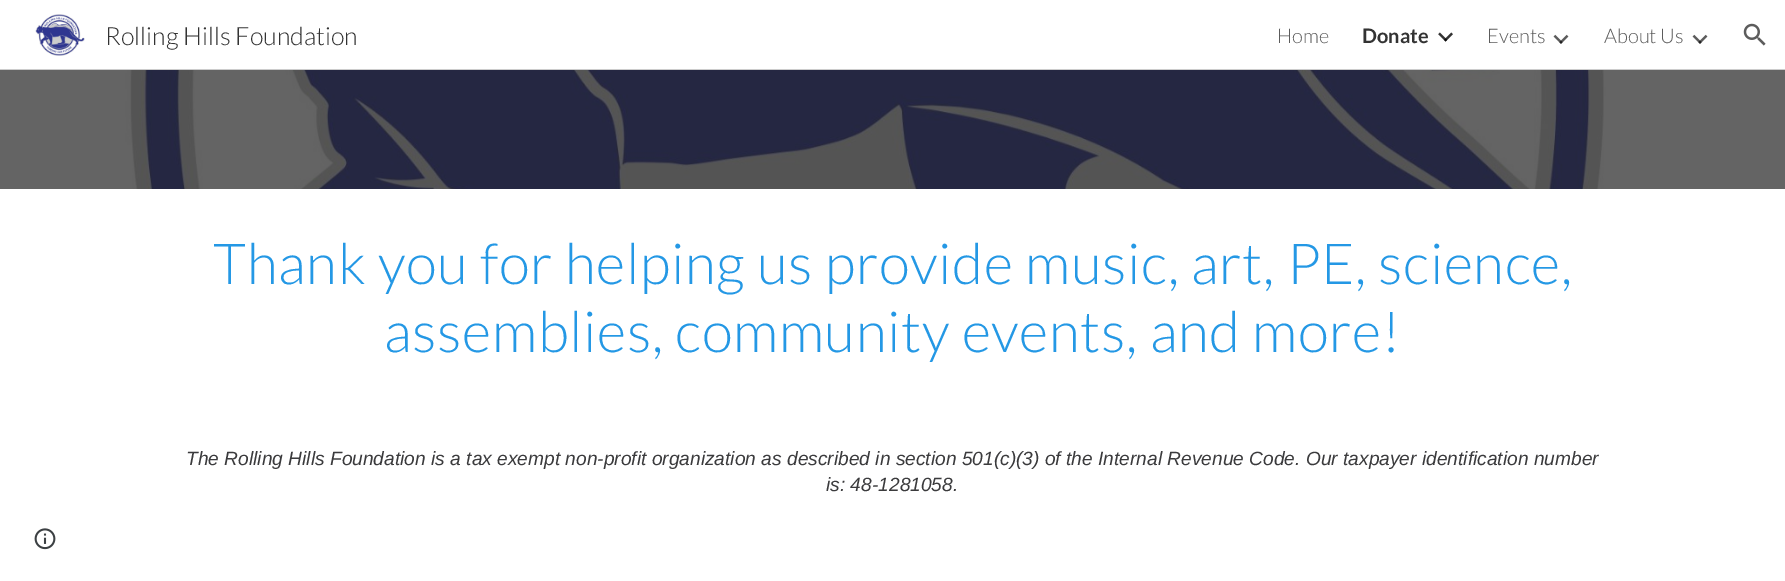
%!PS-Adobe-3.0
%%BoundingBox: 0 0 1785 581
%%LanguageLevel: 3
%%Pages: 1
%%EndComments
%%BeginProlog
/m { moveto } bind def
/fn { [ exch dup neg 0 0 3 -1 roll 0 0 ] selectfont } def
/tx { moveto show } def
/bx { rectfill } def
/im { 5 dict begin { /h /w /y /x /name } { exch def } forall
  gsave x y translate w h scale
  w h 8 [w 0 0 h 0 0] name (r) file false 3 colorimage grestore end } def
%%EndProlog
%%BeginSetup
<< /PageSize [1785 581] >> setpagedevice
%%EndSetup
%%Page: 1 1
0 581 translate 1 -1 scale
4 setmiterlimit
1 setgray
0 0 1785 581 bx
(image0.raw) 35 14 50 42 im
/Lato-Light 25 fn
0.2 setgray
(Rolling Hills Foundation) 105 45 tx
/Lato-Light 20 fn
0.361 setgray
(Home) 1277 43 tx
/Lato-Bold 20 fn
0.2 setgray
(Donate) 1362 43 tx
(image1.raw) 1438 32 15 10 im
/Lato-Light 20 fn
0.361 setgray
(Events) 1487 43 tx
(image2.raw) 1553 34 16 10 im
(About Us) 1604 43 tx
(image3.raw) 1692 34 16 10 im
(image4.raw) 1743 23 23 23 im
0.8 setgray
0 69 1785 1 bx
(image5.raw) 0 70 1785 119 im
/Lato-Light 56.7 fn
0.141 0.596 0.898 setrgbcolor
213 284 m 0.62 0 (Thank you for helping us provide music, art, PE, science,) ashow
384 352 m 0.62 0 (assemblies, community events, and more!) ashow
/LiberationSans-Italic 19.17 fn
0.231 0.231 0.239 setrgbcolor
(The Rolling Hills Foundation is a tax exempt non-profit organization as described in section 501\(c\)\(3\) of the Internal Revenue Code. Our taxpayer identification number) 186 465 tx
(is: 48-1281058.) 826 491 tx
(image6.raw) 34 528 22 22 im
showpage
%%EOF
